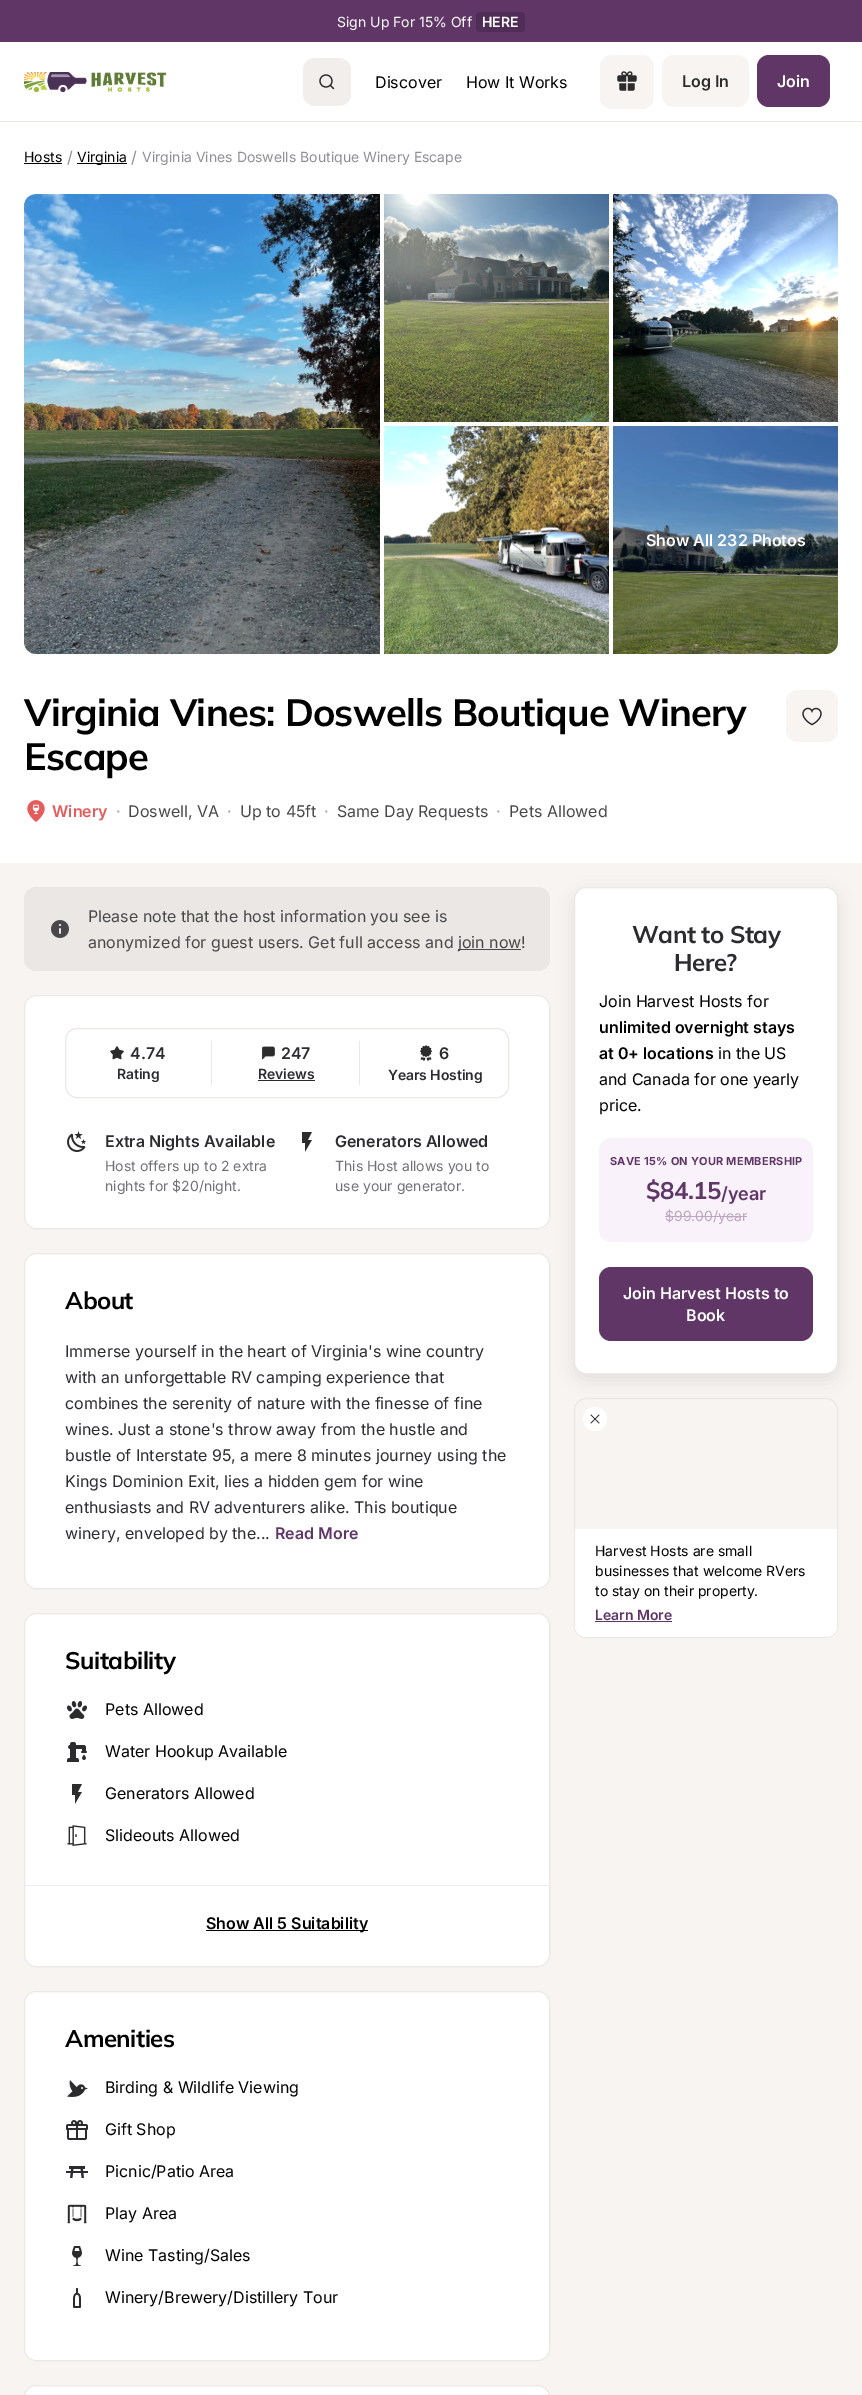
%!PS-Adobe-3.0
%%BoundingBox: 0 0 862 2395
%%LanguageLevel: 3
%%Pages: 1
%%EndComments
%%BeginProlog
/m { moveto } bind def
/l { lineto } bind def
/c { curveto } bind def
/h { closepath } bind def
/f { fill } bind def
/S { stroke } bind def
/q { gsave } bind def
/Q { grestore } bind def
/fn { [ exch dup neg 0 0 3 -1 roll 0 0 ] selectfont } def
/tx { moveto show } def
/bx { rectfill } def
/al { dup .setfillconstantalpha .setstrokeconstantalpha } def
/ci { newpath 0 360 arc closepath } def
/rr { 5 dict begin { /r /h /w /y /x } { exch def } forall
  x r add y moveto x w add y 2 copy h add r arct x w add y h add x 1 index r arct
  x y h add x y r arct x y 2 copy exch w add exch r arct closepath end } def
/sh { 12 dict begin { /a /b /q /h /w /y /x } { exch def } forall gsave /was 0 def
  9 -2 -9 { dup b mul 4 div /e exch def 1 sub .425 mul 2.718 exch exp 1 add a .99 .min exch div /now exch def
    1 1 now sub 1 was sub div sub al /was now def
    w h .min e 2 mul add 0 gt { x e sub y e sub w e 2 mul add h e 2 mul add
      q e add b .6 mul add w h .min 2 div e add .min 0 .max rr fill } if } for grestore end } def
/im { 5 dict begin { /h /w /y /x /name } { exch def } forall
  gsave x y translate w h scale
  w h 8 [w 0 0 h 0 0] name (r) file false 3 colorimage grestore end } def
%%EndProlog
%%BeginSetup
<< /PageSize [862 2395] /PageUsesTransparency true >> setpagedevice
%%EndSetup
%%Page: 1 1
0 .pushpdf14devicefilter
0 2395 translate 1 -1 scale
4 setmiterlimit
1 setgray
0 0 862 2395 bx
0.373 0.212 0.4 setrgbcolor
0 0 862 42 bx
/Inter-Regular 14 fn
1 setgray
(Sign Up For 15% Off) 337 27 tx
0.314 0.176 0.337 setrgbcolor
476 12 49 20 4 rr f
/Inter-SemiBold 14 fn
1 setgray
(HERE) 482 27 tx
0.922 0.906 0.894 setrgbcolor
0 121 862 1 bx
(image0.raw) 24 72 142 20 im
0.949 0.933 0.922 setrgbcolor
303 58 48 48 12 rr f
(image1.raw) 319 74 16 16 im
/Inter-Regular 16 fn
0 setgray
(Discover) 375 88 tx
(How It Works) 466 88 tx
0.969 0.957 0.949 setrgbcolor
600 55 54 54 12 rr f
(image2.raw) 617 71 20 20 im
662 55 87 52 12 rr f
/Inter-SemiBold 16 fn
0.173 0.173 0.18 setrgbcolor
(Log In) 682 87 tx
0.373 0.212 0.4 setrgbcolor
757 55 73 52 12 rr f
1 setgray
(Join) 777 87 tx
/Inter-Regular 14 fn
0 setgray
(Hosts) 24 162 tx
24 163 38 1 bx
/Inter-Regular 16 fn
0.557 0.557 0.576 setrgbcolor
(/) 67 163 tx
0 setgray
77 163 50 1 bx
/Inter-Regular 14 fn
(Virginia) 77 162 tx
/Inter-Regular 16 fn
0.557 0.557 0.576 setrgbcolor
(/) 131 163 tx
/Inter-Regular 14 fn
(Virginia Vines Doswells Boutique Winery Escape) 142 162 tx
0.969 0.957 0.949 setrgbcolor
0 863 862 1532 bx
(image3.raw) 24 194 356 460 im
(image4.raw) 384 194 225 228 im
(image5.raw) 613 194 225 228 im
(image6.raw) 384 426 225 228 im
(image7.raw) 613 426 225 228 im
/Inter-SemiBold 16 fn
1 setgray
(Show All 232 Photos) 646 546 tx
/Mulish-Bold 38 fn
0 setgray
24 726 m -0.75 0 (Virginia Vines: Doswells Boutique Winery) ashow
24 770 m -0.75 0 (Escape) ashow
(image8.raw) 27 800 18 22 im
/Inter-SemiBold 16 fn
0.894 0.361 0.361 setrgbcolor
(Winery) 52 817 tx
/Inter-Regular 16 fn
0.627 0.627 0.639 setrgbcolor
(·) 116 817 tx
0.282 0.282 0.29 setrgbcolor
(Doswell, VA) 128 817 tx
0.627 0.627 0.639 setrgbcolor
(·) 227 817 tx
0.282 0.282 0.29 setrgbcolor
(Up to 45ft) 240 817 tx
0.627 0.627 0.639 setrgbcolor
(·) 324 817 tx
0.282 0.282 0.29 setrgbcolor
(Same Day Requests) 337 817 tx
0.627 0.627 0.639 setrgbcolor
(·) 496 817 tx
0.282 0.282 0.29 setrgbcolor
(Pets Allowed) 509 817 tx
0.969 0.957 0.949 setrgbcolor
786 690 52 52 12 rr f
(image9.raw) 802 707 20 19 im
0.922 0.906 0.894 setrgbcolor
24 887 526 84 12 rr f
(image10.raw) 51 920 18 18 im
0.282 0.282 0.29 setrgbcolor
(Please note that the host information you see is) 88 922 tx
(anonymized for guest users. Get full access and) 88 948 tx
458 949 63 1 bx
(join now!) 458 948 tx
1 setgray
24 995 526 234 12 rr f
0.1 al
0.251 0.11 0 setrgbcolor
24.5 995.5 525 233 11.5 rr S
1 al
0.922 0.906 0.894 setrgbcolor
65.5 1028.5 443 69 11.5 rr S
211 1041 1 44 bx
(image11.raw) 110 1046 14 14 im
/Inter-SemiBold 16 fn
0.173 0.173 0.18 setrgbcolor
130 1059 m -0.1 0 (4.74) ashow
/Inter-SemiBold 14 fn
117 1079 m -0.1 0 (Rating) ashow
0.922 0.906 0.894 setrgbcolor
359 1041 1 44 bx
(image12.raw) 261 1046 14 14 im
/Inter-SemiBold 16 fn
0.173 0.173 0.18 setrgbcolor
281 1059 m -0.1 0 (247) ashow
/Inter-SemiBold 14 fn
258 1079 m -0.1 0 (Reviews) ashow
258 1080 57 1 bx
(image13.raw) 420 1045 12 16 im
/Inter-SemiBold 16 fn
439 1059 m -0.1 0 (6) ashow
/Inter-SemiBold 14 fn
388 1080 m -0.1 0 (Years Hosting) ashow
(image14.raw) 67 1131 20 21 im
/Inter-SemiBold 16 fn
(Extra Nights Available) 105 1147 tx
/Inter-Regular 14 fn
0.443 0.443 0.459 setrgbcolor
(Host offers up to 2 extra) 105 1171 tx
(nights for $20/night.) 105 1191 tx
(image15.raw) 302 1132 10 20 im
/Inter-SemiBold 16 fn
0.173 0.173 0.18 setrgbcolor
(Generators Allowed) 335 1147 tx
/Inter-Regular 14 fn
0.443 0.443 0.459 setrgbcolor
(This Host allows you to) 335 1171 tx
(use your generator.) 335 1191 tx
1 setgray
24 1253 526 336 12 rr f
0.1 al
0.251 0.11 0 setrgbcolor
24.5 1253.5 525 335 11.5 rr S
/Mulish-Bold 24 fn
1 al
0 setgray
65 1309 m -0.5 0 (About) ashow
/Inter-Regular 16 fn
0.173 0.173 0.18 setrgbcolor
(Immerse yourself in the heart of Virginia's wine country) 65 1357 tx
(with an unforgettable RV camping experience that) 65 1383 tx
(combines the serenity of nature with the finesse of fine) 65 1409 tx
(wines. Just a stone's throw away from the hustle and) 65 1435 tx
(bustle of Interstate 95, a mere 8 minutes journey using the) 65 1461 tx
(Kings Dominion Exit, lies a hidden gem for wine) 65 1487 tx
(enthusiasts and RV adventurers alike. This boutique) 65 1513 tx
(winery, enveloped by the...) 65 1539 tx
/Inter-SemiBold 16 fn
0.373 0.212 0.4 setrgbcolor
(Read More) 275 1539 tx
1 setgray
24 1613 526 354 12 rr f
0.1 al
0.251 0.11 0 setrgbcolor
24.5 1613.5 525 353 11.5 rr S
/Mulish-Bold 24 fn
1 al
0 setgray
65 1669 m -0.5 0 (Suitability) ashow
(image16.raw) 67 1701 20 18 im
/Inter-Regular 16 fn
(Pets Allowed) 105 1715 tx
(image17.raw) 67 1742 20 20 im
(Water Hookup Available) 105 1757 tx
(image15.raw) 72 1784 10 20 im
(Generators Allowed) 105 1799 tx
(image18.raw) 67 1825 20 21 im
(Slideouts Allowed) 105 1841 tx
0.929 setgray
25 1885 524 1 bx
0 setgray
206 1930 162 1 bx
/Inter-SemiBold 16 fn
(Show All 5 Suitability) 206 1929 tx
1 setgray
24 1991 526 370 12 rr f
0.1 al
0.251 0.11 0 setrgbcolor
24.5 1991.5 525 369 11.5 rr S
/Mulish-Bold 24 fn
1 al
0 setgray
65 2047 m -0.5 0 (Amenities) ashow
(image19.raw) 67 2080 21 17 im
/Inter-Regular 16 fn
(Birding & Wildlife Viewing) 105 2093 tx
(image20.raw) 66 2120 22 20 im
(Gift Shop) 105 2135 tx
(image21.raw) 66 2166 22 12 im
(Picnic/Patio Area) 105 2177 tx
(image22.raw) 67 2204 20 20 im
(Play Area) 105 2219 tx
(image23.raw) 72 2246 10 20 im
(Wine Tasting/Sales) 105 2261 tx
(image24.raw) 73 2288 8 20 im
(Winery/Brewery/Distillery Tour) 105 2303 tx
1 setgray
24 2385 526 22 12 rr f
0.1 al
0.251 0.11 0 setrgbcolor
24.5 2385.5 525 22 11.5 rr S
1 al
0 setgray
574 893 264 487 12 8 0.08 sh
1 setgray
574.5 887.5 263 486 11.5 rr q f Q
0.922 0.906 0.894 setrgbcolor
S
/Mulish-Bold 24 fn
0.173 0.173 0.18 setrgbcolor
632 943 m -0.5 0 (Want to Stay) ashow
674 971 m -0.5 0 (Here?) ashow
/Inter-Regular 16 fn
0 setgray
(Join Harvest Hosts for) 599 1007 tx
/Inter-SemiBold 16 fn
(unlimited overnight stays) 599 1033 tx
(at 0+ locations) 599 1059 tx
/Inter-Regular 16 fn
(in the US) 718 1059 tx
(and Canada for one yearly) 599 1085 tx
(price.) 599 1111 tx
0.976 0.949 0.98 setrgbcolor
599 1138 214 104 12 rr f
/Inter-Bold 11 fn
0.373 0.212 0.4 setrgbcolor
610 1165 m 0.25 0 (SAVE 15% ON YOUR MEMBERSHIP) ashow
/Mulish-Bold 24 fn
646 1199 m -0.5 0 ($84.15) ashow
/Inter-SemiBold 18 fn
721 1200 m -0.1 0 (/year) ashow
/Inter-Regular 14 fn
0.733 0.655 0.749 setrgbcolor
($99.00/year) 665 1221 tx
665 1216 82 1 bx
0.373 0.212 0.4 setrgbcolor
599 1267 214 74 12 rr f
/Inter-SemiBold 16 fn
1 setgray
(Join Harvest Hosts to) 623 1299 tx
(Book) 686 1321 tx
0.922 0.906 0.894 setrgbcolor
574.5 1398.5 263 239 11.5 rr S
1 setgray
595 1419 12 ci f
(image25.raw) 590 1414 10 10 im
575 1529 m 837 1529 l 837 1626 l 837 1632 832 1637 826 1637 c 586 1637 l 580 1637 575 1632 575 1626 c h f
/Inter-Regular 14 fn
0 setgray
(Harvest Hosts are small) 595 1556 tx
(businesses that welcome RVers) 595 1576 tx
(to stay on their property.) 595 1596 tx
/Inter-SemiBold 14 fn
0.373 0.212 0.4 setrgbcolor
(Learn More) 595 1620 tx
595 1621 77 1 bx
.poppdf14devicefilter showpage
%%EOF
